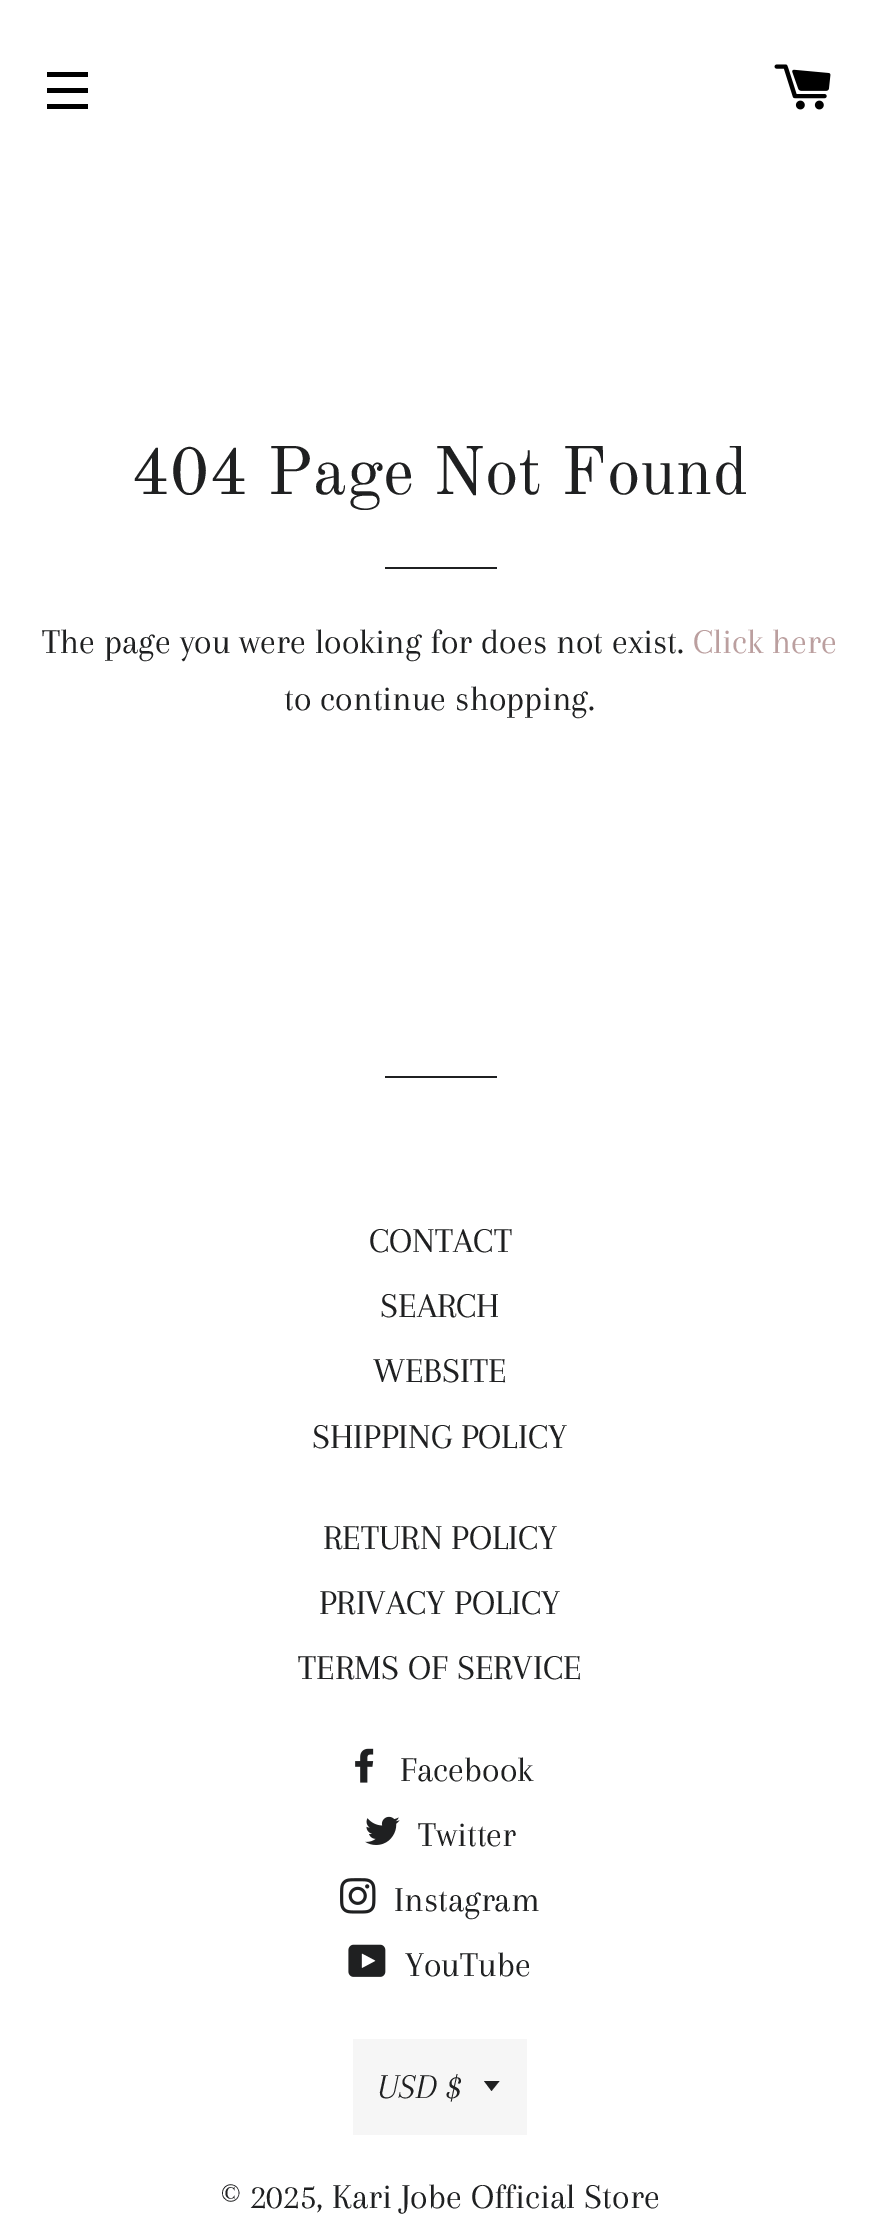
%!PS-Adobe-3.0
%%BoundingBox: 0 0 878 2236
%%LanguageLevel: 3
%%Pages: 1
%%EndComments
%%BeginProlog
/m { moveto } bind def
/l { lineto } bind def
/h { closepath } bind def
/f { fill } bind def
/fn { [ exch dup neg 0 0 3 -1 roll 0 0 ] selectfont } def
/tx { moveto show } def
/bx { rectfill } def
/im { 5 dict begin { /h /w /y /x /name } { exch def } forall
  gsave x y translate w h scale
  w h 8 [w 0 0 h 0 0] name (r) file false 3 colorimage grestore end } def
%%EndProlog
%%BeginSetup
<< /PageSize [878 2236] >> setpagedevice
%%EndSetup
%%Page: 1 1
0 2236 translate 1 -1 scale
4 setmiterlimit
1 setgray
0 0 878 2236 bx
0 setgray
47 72 41 5 bx
47 88 41 5 bx
47 104 41 5 bx
(image0.raw) 774 64 57 46 im
/OldStandardTT-Regular 67.5 fn
0.122 0.125 0.129 setrgbcolor
(404 Page Not Found) 131 494 tx
385 567 112 2 bx
/Arapey-Regular 36 fn
(The page you were looking for does not exist.) 42 653 tx
0.733 0.624 0.624 setrgbcolor
(Click here) 693 653 tx
0.122 0.125 0.129 setrgbcolor
(to continue shopping.) 284 710 tx
385 1076 112 2 bx
(CONTACT) 369 1252 tx
(SEARCH) 380 1317 tx
(WEBSITE) 373 1382 tx
(SHIPPING POLICY) 312 1448 tx
(RETURN POLICY) 323 1549 tx
(PRIVACY POLICY) 319 1614 tx
(TERMS OF SERVICE) 298 1679 tx
(image1.raw) 355 1748 19 35 im
(Facebook) 400 1781 tx
(image2.raw) 365 1816 35 29 im
(Twitter) 418 1846 tx
(image3.raw) 340 1878 36 36 im
(Instagram) 394 1911 tx
(image4.raw) 348 1944 38 33 im
(YouTube) 405 1976 tx
0.965 setgray
353 2039 174 96 bx
0.122 0.125 0.129 setrgbcolor
484 2081 m 491.5 2091 l 499.5 2081 l h f
/Arapey-Italic 36 fn
(USD $) 377 2098 tx
/Arapey-Regular 36 fn
(© 2025, Kari Jobe Official Store) 221 2208 tx
showpage
%%EOF
